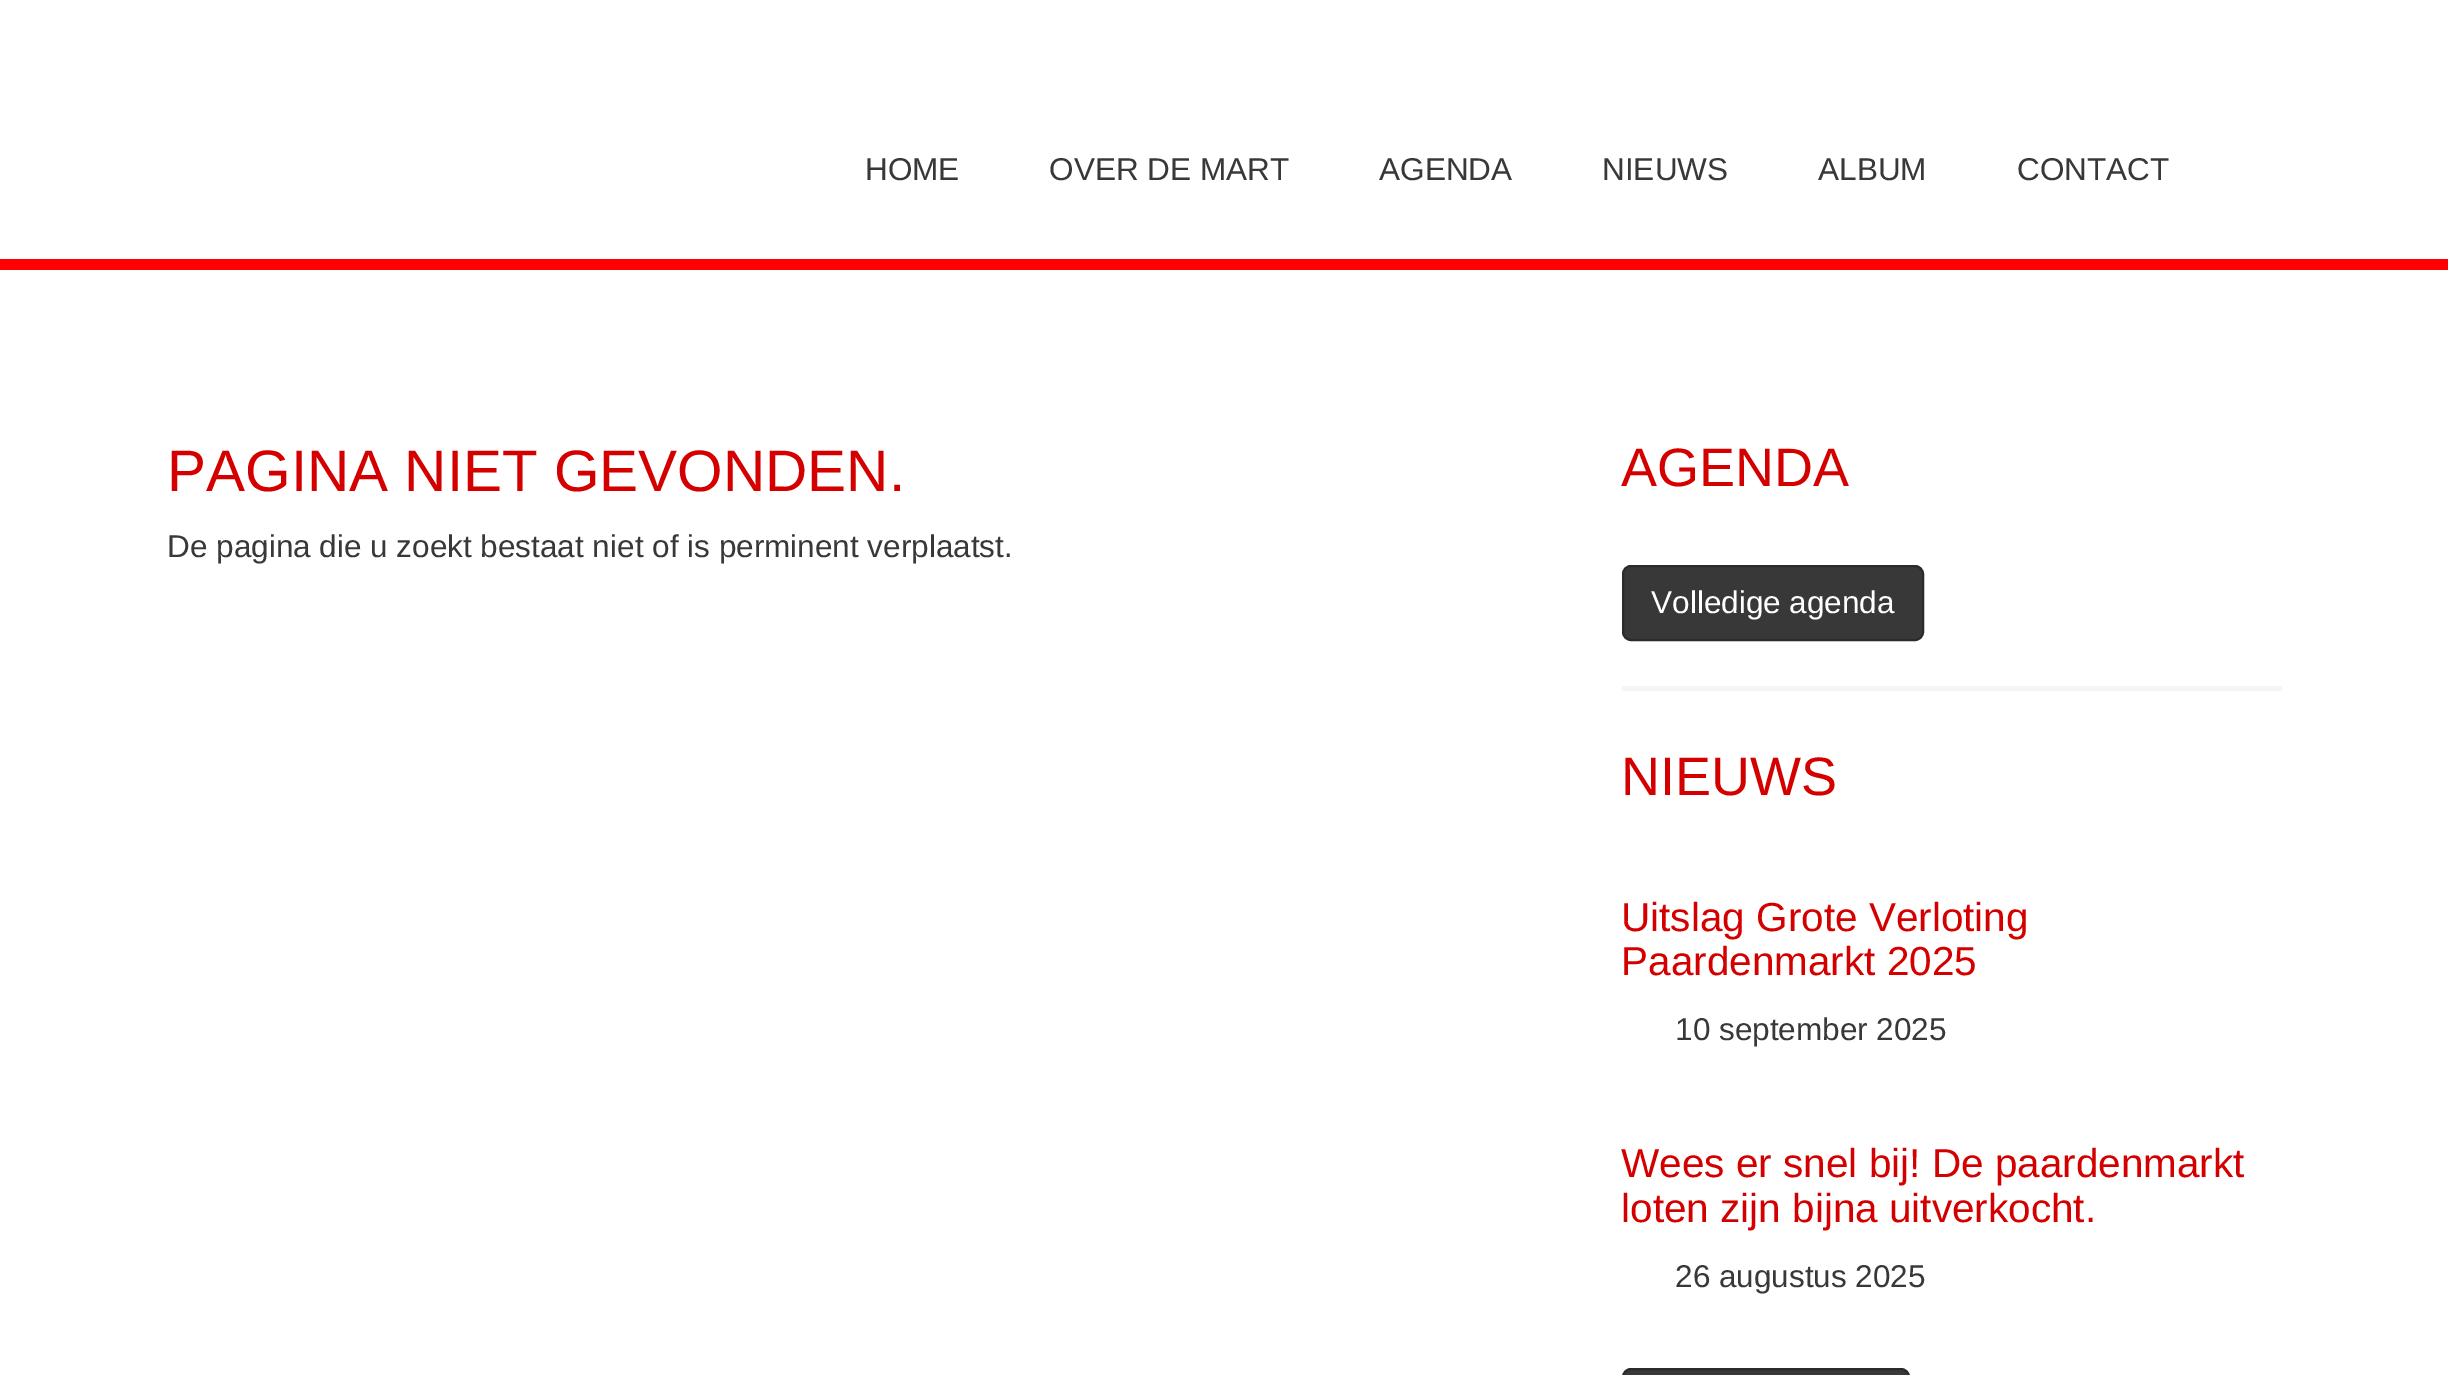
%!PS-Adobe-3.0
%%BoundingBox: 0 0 2448 1375
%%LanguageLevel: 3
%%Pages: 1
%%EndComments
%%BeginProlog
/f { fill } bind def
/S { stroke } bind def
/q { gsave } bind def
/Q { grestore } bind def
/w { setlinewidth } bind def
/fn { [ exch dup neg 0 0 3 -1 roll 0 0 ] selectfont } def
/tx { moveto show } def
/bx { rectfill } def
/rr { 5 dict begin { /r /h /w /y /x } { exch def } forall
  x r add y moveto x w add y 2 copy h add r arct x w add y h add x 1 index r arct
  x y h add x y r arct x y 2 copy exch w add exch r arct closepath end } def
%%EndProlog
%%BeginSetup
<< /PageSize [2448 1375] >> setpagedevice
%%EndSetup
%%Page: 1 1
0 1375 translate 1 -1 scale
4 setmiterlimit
1 setgray
0 0 2448 1375 bx
1 0 0 setrgbcolor
0 259 2448 11 bx
/LiberationSans-Regular 31.5 fn
0.224 0.22 0.224 setrgbcolor
(HOME) 865 180 tx
(OVER DE MART) 1049 180 tx
(AGENDA) 1379 180 tx
(NIEUWS) 1602 180 tx
(ALBUM) 1818 180 tx
(CONTACT) 2017 180 tx
/LiberationSans-Regular 58.5 fn
0.831 0 0 setrgbcolor
(PAGINA NIET GEVONDEN.) 167 491 tx
/LiberationSans-Regular 31.5 fn
0.224 0.22 0.224 setrgbcolor
(De pagina die u zoekt bestaat niet of is perminent verplaatst.) 167 557 tx
/LiberationSans-Regular 54 fn
0.831 0 0 setrgbcolor
(AGENDA) 1621 486 tx
0.224 0.22 0.224 setrgbcolor
1623 566 300 74 8 rr q f Q
0.173 0.169 0.173 setrgbcolor
2 w
S
/LiberationSans-Regular 31.5 fn
1 setgray
(Volledige agenda) 1651 613 tx
0.965 0.957 0.957 setrgbcolor
1622 686 660 5 bx
/LiberationSans-Regular 54 fn
0.831 0 0 setrgbcolor
(NIEUWS) 1621 795 tx
/LiberationSans-Regular 40.5 fn
(Uitslag Grote Verloting) 1621 931 tx
(Paardenmarkt 2025) 1621 975 tx
/LiberationSans-Regular 31.5 fn
0.224 0.22 0.224 setrgbcolor
(10 september 2025) 1675 1040 tx
/LiberationSans-Regular 40.5 fn
0.831 0 0 setrgbcolor
(Wees er snel bij! De paardenmarkt) 1621 1177 tx
(loten zijn bijna uitverkocht.) 1621 1222 tx
/LiberationSans-Regular 31.5 fn
0.224 0.22 0.224 setrgbcolor
(26 augustus 2025) 1675 1287 tx
1623 1369 286 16 8 rr q f Q
0.173 0.169 0.173 setrgbcolor
S
showpage
%%EOF
